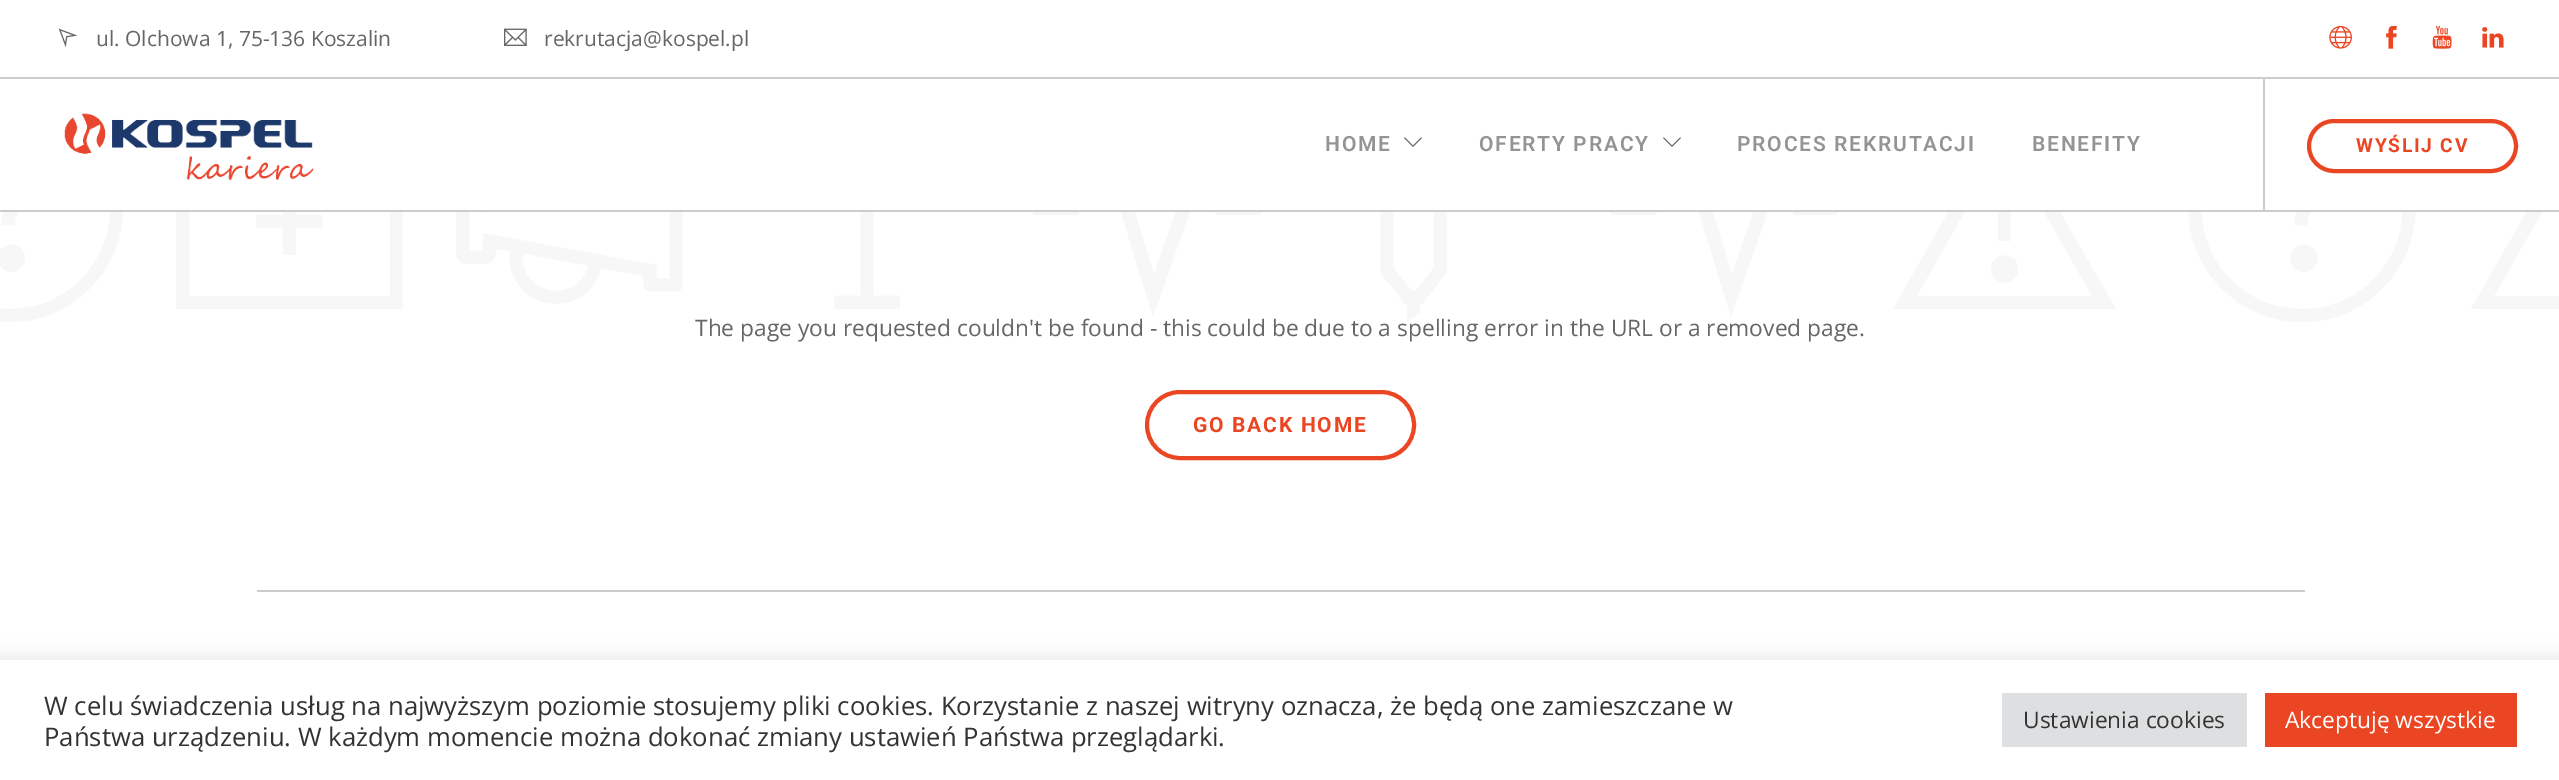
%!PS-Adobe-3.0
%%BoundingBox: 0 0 2559 780
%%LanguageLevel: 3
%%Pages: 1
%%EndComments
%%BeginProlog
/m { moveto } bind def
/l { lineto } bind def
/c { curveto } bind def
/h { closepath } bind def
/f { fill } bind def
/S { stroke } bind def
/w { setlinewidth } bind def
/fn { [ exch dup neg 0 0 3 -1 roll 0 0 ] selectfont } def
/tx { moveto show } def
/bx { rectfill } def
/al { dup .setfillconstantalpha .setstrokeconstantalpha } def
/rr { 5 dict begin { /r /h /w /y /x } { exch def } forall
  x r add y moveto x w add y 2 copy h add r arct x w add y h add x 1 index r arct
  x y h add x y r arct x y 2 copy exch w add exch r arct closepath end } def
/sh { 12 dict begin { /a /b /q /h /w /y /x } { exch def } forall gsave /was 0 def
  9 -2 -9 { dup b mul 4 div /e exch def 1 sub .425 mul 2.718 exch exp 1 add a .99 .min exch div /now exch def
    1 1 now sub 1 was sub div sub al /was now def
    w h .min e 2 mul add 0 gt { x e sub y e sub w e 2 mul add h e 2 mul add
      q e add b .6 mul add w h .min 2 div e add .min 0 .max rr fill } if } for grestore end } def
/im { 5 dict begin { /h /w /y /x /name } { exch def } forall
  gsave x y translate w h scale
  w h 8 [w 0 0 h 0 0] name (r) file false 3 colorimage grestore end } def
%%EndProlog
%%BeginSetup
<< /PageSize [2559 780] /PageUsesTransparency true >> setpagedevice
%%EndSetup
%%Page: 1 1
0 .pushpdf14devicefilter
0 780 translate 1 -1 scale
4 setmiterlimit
1 setgray
0 0 2559 780 bx
0.969 setgray
355 135 m 328 82 251 82 224 135 c 176 135 l 176 309 l 403 309 l 403 135 l h 289 108 m 310 108 329 118 339 135 c 240 135 l 250 118 269 108 289 108 c h 390 296 m 189 296 l 189 148 l 390 148 l h 283 228 m 256 228 l 256 215 l 283 215 l 283 188 l 296 188 l 296 215 l 323 215 l 323 228 l 296 228 l 296 255 l 283 255 l h f
1225 202 m 1200 143 l 1154 274 l 1100 99 l 1068 202 l 1033 202 l 1033 215 l 1078 215 l 1100 144 l 1153 317 l 1201 180 l 1216 215 l 1261 215 l 1261 202 l h f
1803 202 m 1777 143 l 1732 274 l 1678 99 l 1646 202 l 1611 202 l 1611 215 l 1656 215 l 1678 144 l 1731 317 l 1779 180 l 1794 215 l 1838 215 l 1838 202 l h f
2004 115 m 1893 309 l 2116 309 l h 2004 142 m 2092 296 l 1917 296 l h 2011 241 m 1998 241 l 1998 188 l 2011 188 l h 2018 269 m 2018 287 1991 287 1991 269 c 1991 251 2018 251 2018 269 c h f
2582 115 m 2471 309 l 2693 309 l h 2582 142 m 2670 296 l 2494 296 l h 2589 241 m 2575 241 l 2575 188 l 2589 188 l h 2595 269 m 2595 287 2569 287 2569 269 c 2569 251 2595 251 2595 269 c h f
1 setgray
176 95 2383 115 bx
0.8 setgray
0 77 2559 2 bx
(image0.raw) 58 28 20 20 im
/OpenSans-Regular 21 fn
0.4 setgray
(ul. Olchowa 1, 75-136 Koszalin) 96 46 tx
(image1.raw) 504 28 23 18 im
(rekrutacja@kospel.pl) 544 46 tx
(image2.raw) 2329 25 23 24 im
(image3.raw) 2386 25 11 24 im
(image4.raw) 2432 25 20 24 im
(image5.raw) 2482 27 22 21 im
0.8 setgray
0 210 2559 2 bx
(image6.raw) 64 113 250 67 im
/Roboto-SemiBold 21 fn
0.58 setgray
1325 151 m 1.75 0 (HOME) ashow
0.4 setgray
1422 138 m 1413 147 l 1404 138 l 1405 137.5 l 1413 145.5 l 1421 137.5 l h f
0.58 setgray
1479 151 m 1.75 0 (OFERTY PRACY) ashow
0.4 setgray
1681 138 m 1672 147 l 1663 138 l 1664 137.5 l 1672 145.5 l 1680 137.5 l h f
0.58 setgray
1737 151 m 1.75 0 (PROCES REKRUTACJI) ashow
2032 151 m 1.75 0 (BENEFITY) ashow
0.8 setgray
2263 79 2 133 bx
0.922 0.275 0.137 setrgbcolor
4 w
2309 121 207 50 25 rr S
/Roboto-Bold 19.25 fn
2356 152 m 1.75 0 (WYŚLIJ CV) ashow
(image7.raw) 0 212 123 110 im
(image8.raw) 456 212 227 92 im
(image9.raw) 834 212 66 97 im
(image10.raw) 1380 212 67 110 im
(image11.raw) 2188 212 228 110 im
/OpenSans-Regular 22.75 fn
0.4 setgray
(The page you requested couldn't be found - this could be due to a spelling error in the URL or a removed page.) 695 336 tx
0.922 0.275 0.137 setrgbcolor
1147 392 267 66 33 rr S
/Roboto-Bold 21 fn
1193 432 m 1.75 0 (GO BACK HOME) ashow
0.8 setgray
257 590 2048 2 bx
0.675 0.671 0.671 setrgbcolor
0 658 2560 121 0 9 0.3 sh
1 setgray
0 660 2559 120 bx
/OpenSans-Regular 25.67 fn
0.2 setgray
(W celu świadczenia usług na najwyższym poziomie stosujemy pliki cookies. Korzystanie z naszej witryny oznacza, że będą one zamieszczane w) 44 715 tx
(Państwa urządzeniu. W każdym momencie można dokonać zmiany ustawień Państwa przeglądarki.) 44 746 tx
0.871 0.875 0.878 setrgbcolor
2002 693 245 54 bx
/OpenSans-Regular 22.75 fn
0.2 setgray
(Ustawienia cookies) 2023 728 tx
0.922 0.275 0.137 setrgbcolor
2265 693 252 54 bx
1 setgray
(Akceptuję wszystkie) 2285 728 tx
.poppdf14devicefilter showpage
%%EOF
